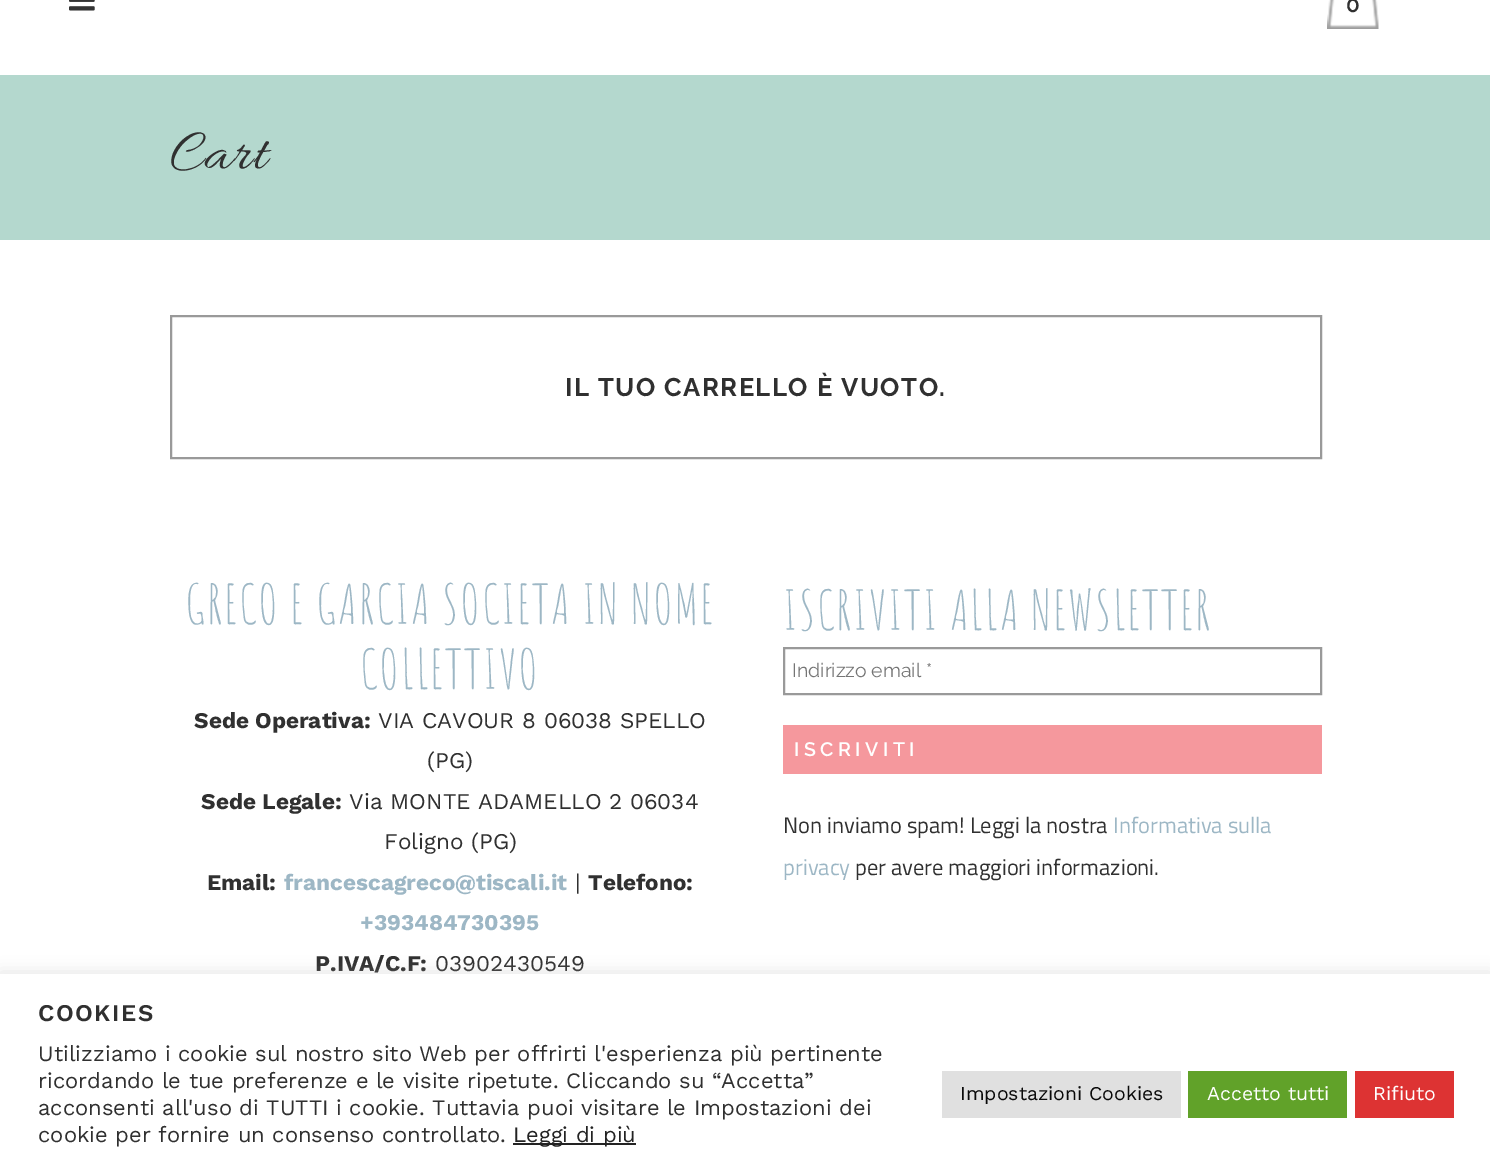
%!PS-Adobe-3.0
%%BoundingBox: 0 0 1490 1168
%%LanguageLevel: 3
%%Pages: 1
%%EndComments
%%BeginProlog
/m { moveto } bind def
/w { setlinewidth } bind def
/fn { [ exch dup neg 0 0 3 -1 roll 0 0 ] selectfont } def
/tx { moveto show } def
/bx { rectfill } def
/al { dup .setfillconstantalpha .setstrokeconstantalpha } def
/rr { 5 dict begin { /r /h /w /y /x } { exch def } forall
  x r add y moveto x w add y 2 copy h add r arct x w add y h add x 1 index r arct
  x y h add x y r arct x y 2 copy exch w add exch r arct closepath end } def
/sh { 12 dict begin { /a /b /q /h /w /y /x } { exch def } forall gsave /was 0 def
  9 -2 -9 { dup b mul 4 div /e exch def 1 sub .425 mul 2.718 exch exp 1 add a .99 .min exch div /now exch def
    1 1 now sub 1 was sub div sub al /was now def
    w h .min e 2 mul add 0 gt { x e sub y e sub w e 2 mul add h e 2 mul add
      q e add b .6 mul add w h .min 2 div e add .min 0 .max rr fill } if } for grestore end } def
/im { 5 dict begin { /h /w /y /x /name } { exch def } forall
  gsave x y translate w h scale
  w h 8 [w 0 0 h 0 0] name (r) file false 3 colorimage grestore end } def
%%EndProlog
%%BeginSetup
<< /PageSize [1490 1168] /PageUsesTransparency true >> setpagedevice
%%EndSetup
%%Page: 1 1
0 .pushpdf14devicefilter
0 1168 translate 1 -1 scale
4 setmiterlimit
1 setgray
0 0 1490 1168 bx
(image0.raw) 69 0 26 11 im
(image1.raw) 1327 0 52 29 im
/Raleway-SemiBold 22.5 fn
0.188 setgray
(0) 1346 12 tx
0.706 0.847 0.808 setrgbcolor
0 75 1490 165 bx
/Allura-Regular 60 fn
0.188 setgray
170 168 m 1.5 0 (Cart) ashow
0.6 setgray
2 w
171 316 1150 142 rectstroke
/Raleway-Bold 25.5 fn
0.188 setgray
565 396 m 1.5 0 (IL TUO CARRELLO È VUOTO.) ashow
/AmaticSC-Regular 54 fn
0.616 0.718 0.773 setrgbcolor
185 624 m 1.5 0 (GRECO E GARCIA SOCIETA IN NOME) ashow
360 689 m 1.5 0 (COLLETTIVO) ashow
/WorkSans-Bold 22.5 fn
0.188 setgray
(Sede Operativa:) 194 728 tx
/WorkSans-Regular 22.5 fn
(VIA CAVOUR 8 06038 SPELLO) 378 728 tx
(\(PG\)) 427 768 tx
/WorkSans-Bold 22.5 fn
(Sede Legale:) 201 809 tx
/WorkSans-Regular 22.5 fn
(Via MONTE ADAMELLO 2 06034) 349 809 tx
(Foligno \(PG\)) 384 849 tx
/WorkSans-Bold 22.5 fn
(Email:) 207 890 tx
0.616 0.718 0.773 setrgbcolor
(francescagreco@tiscali.it) 284 890 tx
/WorkSans-Regular 22.5 fn
0.188 setgray
(|) 575 890 tx
/WorkSans-Bold 22.5 fn
(Telefono:) 588 890 tx
0.616 0.718 0.773 setrgbcolor
(+393484730395) 360 930 tx
0.188 setgray
(P.IVA/C.F:) 315 971 tx
/WorkSans-Regular 22.5 fn
(03902430549) 435 971 tx
/AmaticSC-Regular 54 fn
0.616 0.718 0.773 setrgbcolor
783 630 m 1.5 0 (ISCRIVITI ALLA NEWSLETTER) ashow
0.6 setgray
784 648 537 46 rectstroke
/Raleway-Regular 19.5 fn
0.459 setgray
(Indirizzo email *) 792 677 tx
0.961 0.596 0.616 setrgbcolor
783 725 539 49 bx
/Raleway-SemiBold 19.5 fn
1 setgray
794 756 m 4.5 0 (ISCRIVITI) ashow
/TitilliumWeb-Regular 22.5 fn
0.188 setgray
(Non inviamo spam! Leggi la nostra) 783 833 tx
0.616 0.718 0.773 setrgbcolor
(Informativa sulla) 1113 833 tx
(privacy) 783 875 tx
0.188 setgray
(per avere maggiori informazioni.) 855 875 tx
0.675 0.671 0.671 setrgbcolor
0 972 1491 195 0 7.5 0.3 sh
1 setgray
0 974 1490 194 bx
/WorkSans-SemiBold 24 fn
0.188 setgray
38 1021 m 1.5 0 (COOKIES) ashow
/WorkSans-Regular 22 fn
(Utilizziamo i cookie sul nostro sito Web per offrirti l'esperienza più pertinente) 38 1061 tx
(ricordando le tue preferenze e le visite ripetute. Cliccando su “Accetta”) 38 1088 tx
(acconsenti all'uso di TUTTI i cookie. Tuttavia puoi visitare le Impostazioni dei) 38 1115 tx
(cookie per fornire un consenso controllato.) 38 1142 tx
0.137 setgray
513 1143 123 2 bx
(Leggi di più) 513 1142 tx
0.878 setgray
942 1071 239 47 bx
/WorkSans-Regular 19.5 fn
0.039 setgray
(Impostazioni Cookies) 960 1100 tx
0.38 0.635 0.161 setrgbcolor
1188 1071 159 47 bx
1 setgray
(Accetto tutti) 1207 1100 tx
0.867 0.2 0.2 setrgbcolor
1355 1071 99 47 bx
1 setgray
(Rifiuto) 1373 1100 tx
.poppdf14devicefilter showpage
%%EOF
